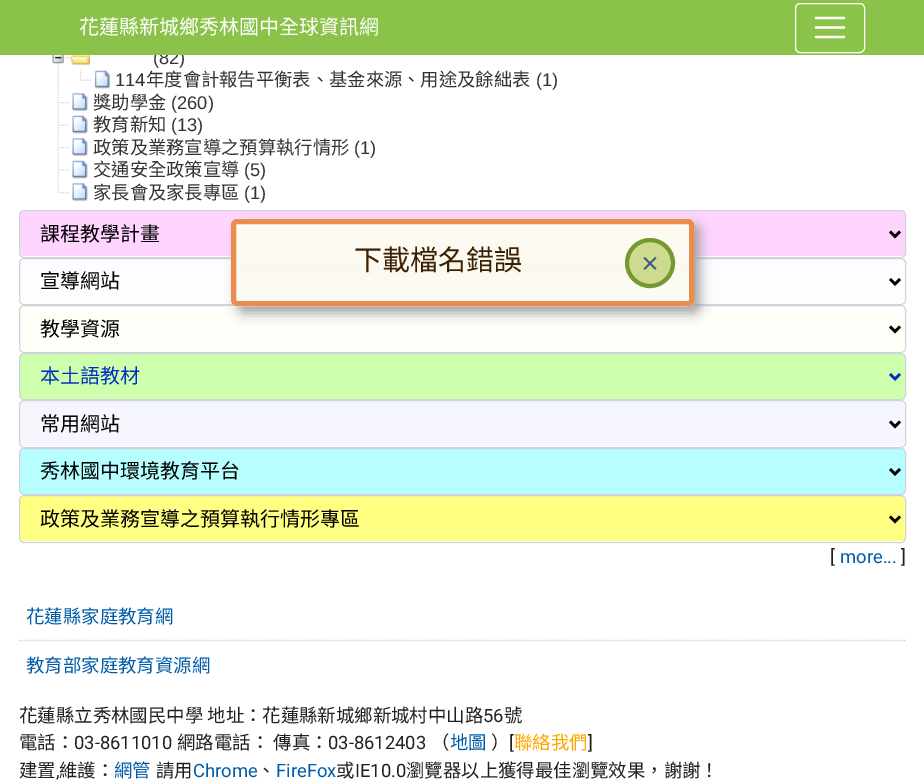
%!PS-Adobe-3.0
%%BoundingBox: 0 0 924 784
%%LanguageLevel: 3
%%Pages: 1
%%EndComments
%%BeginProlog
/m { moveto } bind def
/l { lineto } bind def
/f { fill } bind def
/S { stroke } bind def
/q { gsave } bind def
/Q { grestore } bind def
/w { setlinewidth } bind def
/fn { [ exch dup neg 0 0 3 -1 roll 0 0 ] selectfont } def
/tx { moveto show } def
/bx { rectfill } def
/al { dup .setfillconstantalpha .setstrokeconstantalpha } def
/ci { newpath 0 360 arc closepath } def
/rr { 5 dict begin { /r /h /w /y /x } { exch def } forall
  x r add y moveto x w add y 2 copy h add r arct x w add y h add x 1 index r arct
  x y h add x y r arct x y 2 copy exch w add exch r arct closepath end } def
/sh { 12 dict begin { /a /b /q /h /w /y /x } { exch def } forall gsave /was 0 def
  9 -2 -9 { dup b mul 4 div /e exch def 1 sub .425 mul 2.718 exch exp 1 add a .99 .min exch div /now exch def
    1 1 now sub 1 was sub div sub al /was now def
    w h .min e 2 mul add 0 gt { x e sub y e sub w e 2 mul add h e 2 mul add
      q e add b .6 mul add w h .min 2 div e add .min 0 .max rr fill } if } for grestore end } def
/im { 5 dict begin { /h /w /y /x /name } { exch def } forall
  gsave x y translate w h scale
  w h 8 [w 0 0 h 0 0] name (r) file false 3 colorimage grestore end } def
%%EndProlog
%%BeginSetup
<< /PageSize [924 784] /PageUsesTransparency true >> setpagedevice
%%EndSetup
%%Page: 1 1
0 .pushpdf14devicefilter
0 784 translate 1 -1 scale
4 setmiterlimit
1 setgray
0 0 924 784 bx
/LiberationSans-Regular 18.3 fn
0.2 setgray
(\(82\)) 153 64 tx
0.545 0.765 0.29 setrgbcolor
0 0 924 55 bx
/NotoSansCJKTC-Regular 20 fn
1 setgray
(花蓮縣新城鄉秀林國中全球資訊網) 79 34 tx
795.5 3.5 69 49 4.5 rr S
2.3 w
1 setlinecap
816 18 m 844 18 l 816 27.5 m 844 27.5 l 816 37 m 844 37 l S
(image2.raw) 57 68 2 23 im
(image0.raw) 52 55 17 14 im
(image1.raw) 70 55 20 10 im
(image3.raw) 80 69 12 12 im
(image4.raw) 94 70 17 19 im
/LiberationSans-Regular 18.3 fn
0.2 setgray
(114) 115 86 tx
/NotoSansCJKTC-Regular 18.3 fn
(年度會計報告平衡表、基金來源、用途及餘絀表) 146 86 tx
/LiberationSans-Regular 18.3 fn
(\(1\)) 536 86 tx
(image5.raw) 57 92 12 22 im
(image6.raw) 72 93 16 18 im
/NotoSansCJKTC-Regular 18.3 fn
(獎助學金) 93 109 tx
/LiberationSans-Regular 18.3 fn
(\(260\)) 171 109 tx
(image7.raw) 57 114 12 22 im
(image8.raw) 72 115 16 19 im
/NotoSansCJKTC-Regular 18.3 fn
(教育新知) 93 131 tx
/LiberationSans-Regular 18.3 fn
(\(13\)) 171 131 tx
(image5.raw) 57 137 12 22 im
(image6.raw) 72 138 16 18 im
/NotoSansCJKTC-Regular 18.3 fn
(政策及業務宣導之預算執行情形) 93 154 tx
/LiberationSans-Regular 18.3 fn
(\(1\)) 354 154 tx
(image7.raw) 57 159 12 22 im
(image8.raw) 72 160 16 19 im
/NotoSansCJKTC-Regular 18.3 fn
(交通安全政策宣導) 93 176 tx
/LiberationSans-Regular 18.3 fn
(\(5\)) 244 176 tx
(image9.raw) 57 182 12 12 im
(image6.raw) 72 183 16 18 im
/NotoSansCJKTC-Regular 18.3 fn
(家長會及家長專區) 93 199 tx
/LiberationSans-Regular 18.3 fn
(\(1\)) 244 199 tx
1 0.835 1 setrgbcolor
20 211 885 45 4 rr f
0.808 0.831 0.855 setrgbcolor
1 w
0 setlinecap
19.5 210.5 886 47 4.5 rr S
0 setgray
2.5 w
890 231.5 m 895 236.5 l 900 231.5 l S
/NotoSansCJKTC-Regular 20 fn
(課程教學計畫) 40 241 tx
1 0.988 1 setrgbcolor
19.5 258.5 886 46 4.5 rr q f Q
0.808 0.831 0.855 setrgbcolor
1 w
S
0 setgray
2.5 w
890 279 m 895 284 l 900 279 l S
(宣導網站) 40 288 tx
1 1 0.976 setrgbcolor
20 306 885 45 4 rr f
0.808 0.831 0.855 setrgbcolor
1 w
19.5 305.5 886 47 4.5 rr S
0 setgray
2.5 w
890 326.5 m 895 331.5 l 900 326.5 l S
(教學資源) 40 336 tx
0.808 1 0.675 setrgbcolor
19.5 353.5 886 46 4.5 rr q f Q
0.808 0.831 0.855 setrgbcolor
1 w
S
0 0.184 0.749 setrgbcolor
2.5 w
890 374 m 895 379 l 900 374 l S
(本土語教材) 40 383 tx
0.965 0.965 1 setrgbcolor
20 401 885 45 4 rr f
0.808 0.831 0.855 setrgbcolor
1 w
19.5 400.5 886 47 4.5 rr S
0 setgray
2.5 w
890 421.5 m 895 426.5 l 900 421.5 l S
(常用網站) 40 431 tx
0.718 1 1 setrgbcolor
19.5 448.5 886 46 4.5 rr q f Q
0.808 0.831 0.855 setrgbcolor
1 w
S
0 setgray
2.5 w
890 469 m 895 474 l 900 469 l S
(秀林國中環境教育平台) 40 478 tx
1 1 0.506 setrgbcolor
20 496 885 45 4 rr f
0.808 0.831 0.855 setrgbcolor
1 w
19.5 495.5 886 47 4.5 rr S
0 setgray
2.5 w
890 516.5 m 895 521.5 l 900 516.5 l S
(政策及業務宣導之預算執行情形專區) 40 526 tx
/Roboto-Regular 18.4 fn
0.125 setgray
([) 830 563 tx
0 0.361 0.659 setrgbcolor
(more...) 840 563 tx
0.125 setgray
(]) 901 563 tx
0.812 setgray
1.2 w
[1.25 1.25] 0 setdash
19 640.5 m 906 640.5 l S
/NotoSansCJKTC-Regular 18.4 fn
0 0.361 0.659 setrgbcolor
(花蓮縣家庭教育網) 26 623 tx
(教育部家庭教育資源網) 26 672 tx
0.62 setgray
238 225 462 88 6 6 1 sh
(image10.raw) 231 218 464 89 im
0.914 0.549 0.302 setrgbcolor
5 w
[] 0 setdash
233.5 221.5 458 82 3.5 rr S
/NotoSansTC-Regular 28 fn
0.231 0.125 0.004 setrgbcolor
(下載檔名錯誤) 354 270 tx
0.808 0.855 0.561 setrgbcolor
650 263 23 ci q f Q
0.447 0.6 0.196 setrgbcolor
4 w
S
/NotoSansTC-Bold 20 fn
0.251 0.353 0.502 setrgbcolor
(×) 640 271 tx
/NotoSansCJKTC-Regular 18.4 fn
0.125 setgray
(花蓮縣立秀林國民中學 地址：花蓮縣新城鄉新城村中山路) 19 722 tx
/Roboto-Regular 18.4 fn
(56) 483 722 tx
/NotoSansCJKTC-Regular 18.4 fn
(號) 504 722 tx
(電話：) 19 749 tx
/Roboto-Regular 18.4 fn
(03-8611010) 74 749 tx
/NotoSansCJKTC-Regular 18.4 fn
(網路電話： 傳真：) 177 749 tx
/Roboto-Regular 18.4 fn
(03-8612403) 328 749 tx
/NotoSansCJKTC-Regular 18.4 fn
(（) 431 749 tx
0 0.361 0.659 setrgbcolor
(地圖) 450 749 tx
0.125 setgray
(）) 491 749 tx
/Roboto-Regular 18.4 fn
([) 509 749 tx
/NotoSansCJKTC-Regular 18.4 fn
1 0.647 0 setrgbcolor
(聯絡我們) 514 749 tx
/Roboto-Regular 18.4 fn
0.125 setgray
(]) 588 749 tx
/NotoSansCJKTC-Regular 18.4 fn
(建置) 19 777 tx
(維護：) 59 777 tx
0 0.361 0.659 setrgbcolor
(網管) 114 777 tx
0.125 setgray
(請用) 156 777 tx
/Roboto-Regular 18.4 fn
0 0.361 0.659 setrgbcolor
(Chrome) 193 777 tx
/NotoSansCJKTC-Regular 18.4 fn
0.125 setgray
(、) 257 777 tx
/Roboto-Regular 18.4 fn
0 0.361 0.659 setrgbcolor
(FireFox) 276 777 tx
/NotoSansCJKTC-Regular 18.4 fn
0.125 setgray
(或) 336 777 tx
/Roboto-Regular 18.4 fn
(IE10.0) 355 777 tx
/NotoSansCJKTC-Regular 18.4 fn
(瀏覽器以上獲得最佳瀏覽效果，謝謝！) 406 777 tx
/Roboto-Regular 18.4 fn
(,) 56 777 tx
.poppdf14devicefilter showpage
%%EOF
